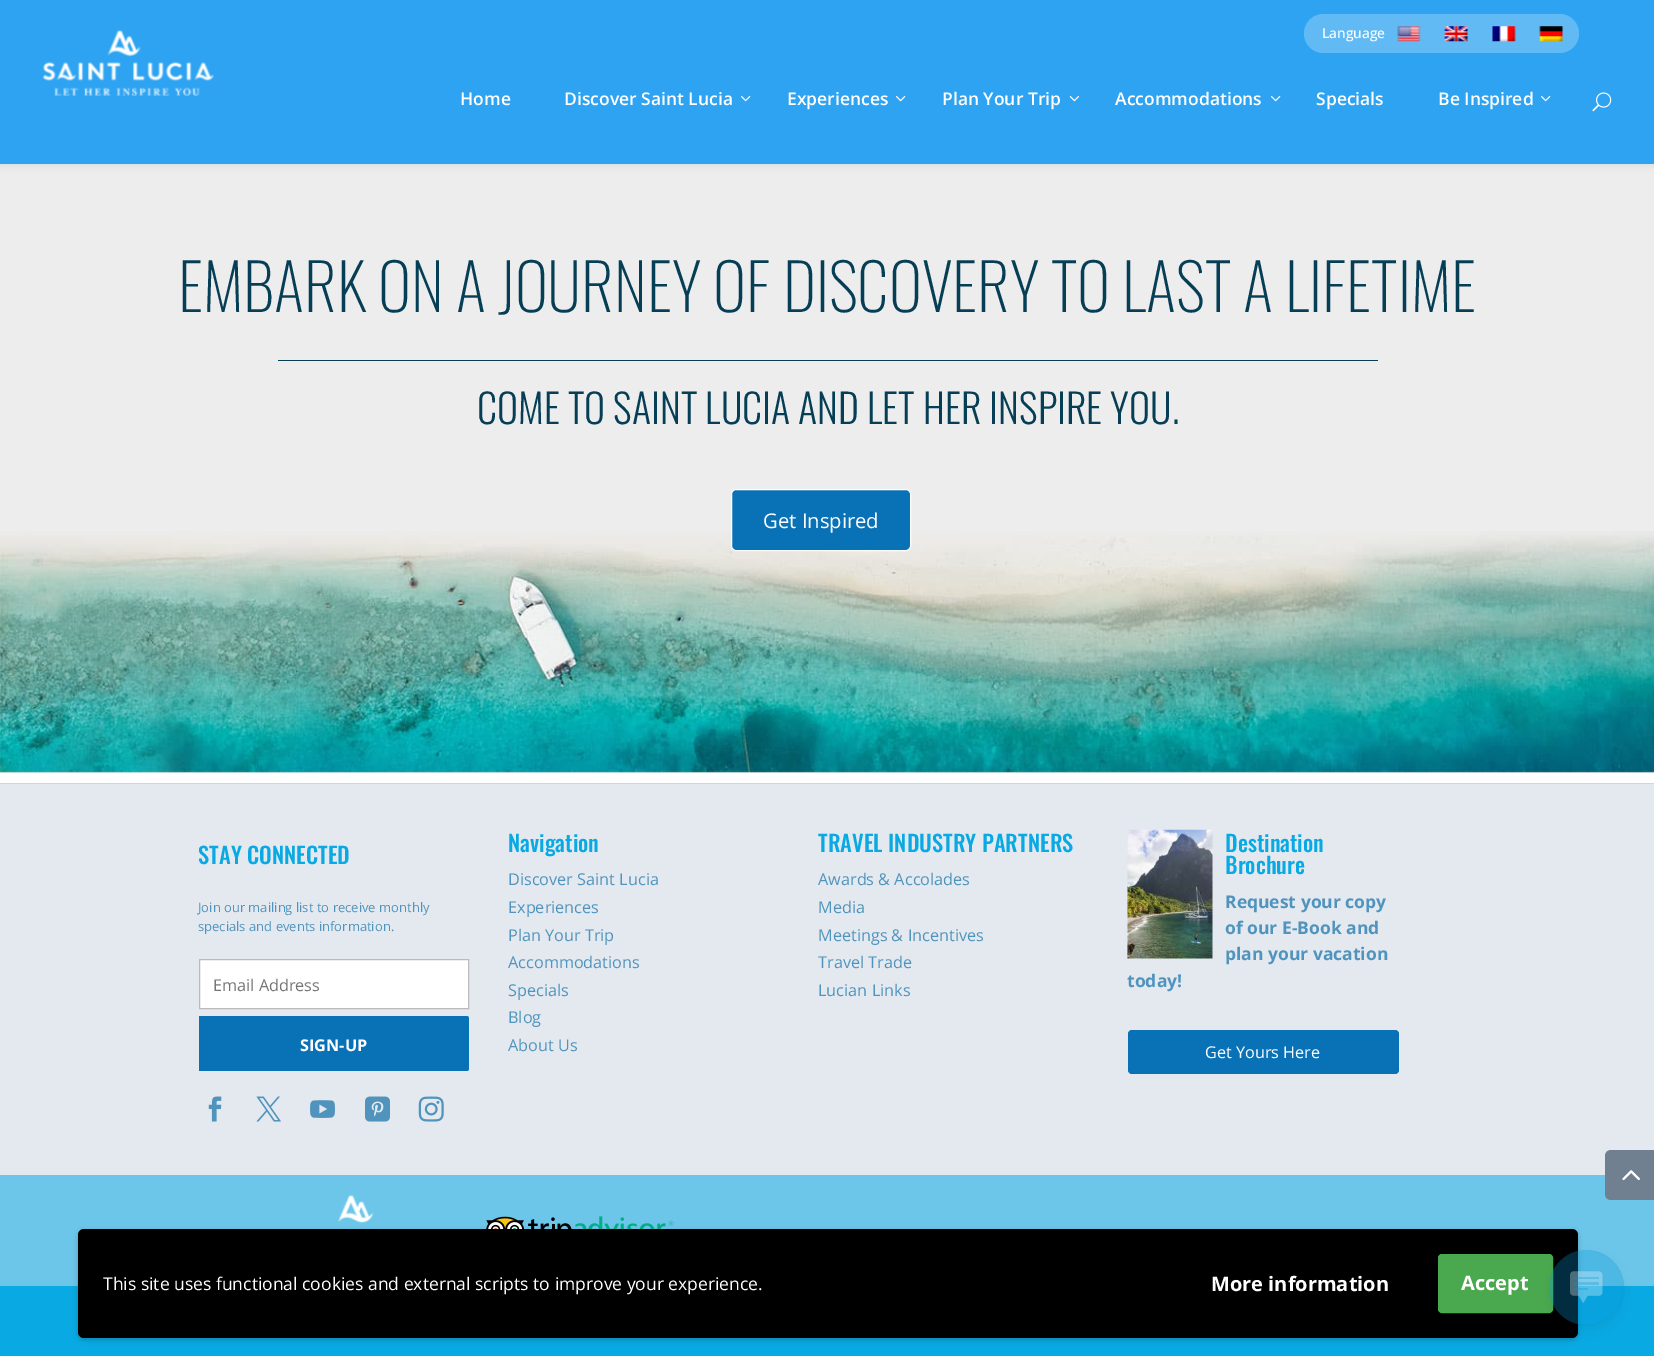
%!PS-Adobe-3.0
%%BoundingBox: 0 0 1654 1356
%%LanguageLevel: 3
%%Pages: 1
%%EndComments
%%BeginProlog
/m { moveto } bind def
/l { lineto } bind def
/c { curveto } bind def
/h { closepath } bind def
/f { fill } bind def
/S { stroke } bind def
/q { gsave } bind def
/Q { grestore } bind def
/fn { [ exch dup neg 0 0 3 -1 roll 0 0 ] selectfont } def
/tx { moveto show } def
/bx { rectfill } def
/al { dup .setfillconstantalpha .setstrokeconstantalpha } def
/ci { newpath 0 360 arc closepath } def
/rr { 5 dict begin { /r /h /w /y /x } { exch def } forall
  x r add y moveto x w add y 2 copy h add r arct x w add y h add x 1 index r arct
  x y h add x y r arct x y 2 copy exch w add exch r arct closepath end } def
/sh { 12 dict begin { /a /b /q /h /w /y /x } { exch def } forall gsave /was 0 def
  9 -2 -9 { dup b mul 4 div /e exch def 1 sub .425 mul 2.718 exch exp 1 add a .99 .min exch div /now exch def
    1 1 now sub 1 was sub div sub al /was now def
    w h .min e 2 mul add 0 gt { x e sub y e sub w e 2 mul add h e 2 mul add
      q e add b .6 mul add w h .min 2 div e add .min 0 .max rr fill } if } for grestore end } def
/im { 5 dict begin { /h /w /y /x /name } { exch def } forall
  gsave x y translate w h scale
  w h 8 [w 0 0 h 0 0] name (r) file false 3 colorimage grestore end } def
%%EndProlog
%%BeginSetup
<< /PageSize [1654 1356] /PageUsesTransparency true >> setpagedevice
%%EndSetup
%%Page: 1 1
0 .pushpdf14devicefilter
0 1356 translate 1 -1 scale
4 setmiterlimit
1 setgray
0 0 1654 1356 bx
0.929 setgray
0 164 1654 609 bx
0 setgray
0 0 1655 164 0 4.5 0.1 sh
0.18 0.639 0.949 setrgbcolor
0 0 1654 164 bx
(image0.raw) 42 30 172 66 im
0.384 0.729 0.961 setrgbcolor
1304 14 275 39 19.5 rr f
/OpenSans-Medium 13.75 fn
1 setgray
(Language) 1322 38 tx
(image1.raw) 1397 26 24 16 im
(image2.raw) 1444 26 24 16 im
(image3.raw) 1492 26 24 16 im
(image4.raw) 1539 26 24 16 im
/OpenSans-SemiBold 17.5 fn
(Home) 460 105 tx
(Discover Saint Lucia) 564 105 tx
(image5.raw) 741 96 10 6 im
(Experiences) 787 105 tx
(image5.raw) 896 96 10 6 im
(Plan Your Trip) 942 105 tx
(image6.raw) 1069 96 10 6 im
(Accommodations) 1115 105 tx
(image5.raw) 1271 96 10 6 im
(Specials) 1316 105 tx
(Be Inspired) 1438 105 tx
(image5.raw) 1541 96 10 6 im
(image7.raw) 1592 92 20 20 im
(image8.raw) 0 531 1654 242 im
/Oswald-ExtraLight 63.75 fn
0.024 0.243 0.333 setrgbcolor
(EMBARK ON A JOURNEY OF DISCOVERY TO LAST A LIFETIME) 178 312 tx
278 360 1100 1 bx
/Oswald-Light 40 fn
(COME TO SAINT LUCIA AND LET HER INSPIRE YOU.) 477 424 tx
0.035 0.447 0.714 setrgbcolor
731.5 489.5 179 61 4.5 rr q f Q
1 setgray
S
/OpenSans-Regular 20.25 fn
(Get Inspired) 763 528 tx
0.894 0.914 0.937 setrgbcolor
0 784 1654 391 bx
0.78 0.855 0.882 setrgbcolor
0 783 1654 1 bx
/Oswald-Medium 22.5 fn
0.035 0.663 0.89 setrgbcolor
(STAY CONNECTED) 198 864 tx
/OpenSans-Regular 13 fn
0.314 0.58 0.741 setrgbcolor
(Join our mailing list to receive monthly) 198 912 tx
(specials and events information.) 198 931 tx
1 setgray
199.5 959.5 m 468.5 959.5 l 468.5 1008.5 l 199.5 1008.5 l h q f Q
0.733 setgray
S
/OpenSans-Regular 16.25 fn
0.459 setgray
(Email Address) 213 991 tx
0.035 0.447 0.714 setrgbcolor
199 1016 m 466.5 1016 l 468 1016 469 1017 469 1018.5 c 469 1068.5 l 469 1070 468 1071 466.5 1071 c 199 1071 l h f
/OpenSans-Bold 16.25 fn
1 setgray
(SIGN-UP) 300 1051 tx
(image9.raw) 208 1096 14 26 im
(image10.raw) 256 1096 25 26 im
(image11.raw) 310 1100 25 18 im
(image12.raw) 365 1096 25 26 im
(image13.raw) 418 1096 26 26 im
/Oswald-Medium 22.5 fn
0.035 0.663 0.89 setrgbcolor
(Navigation) 508 852 tx
/OpenSans-Regular 16.25 fn
0.314 0.58 0.741 setrgbcolor
(Discover Saint Lucia) 508 885 tx
(Experiences) 508 913 tx
(Plan Your Trip) 508 941 tx
(Accommodations) 508 968 tx
(Specials) 508 996 tx
(Blog) 508 1023 tx
(About Us) 508 1051 tx
/Oswald-Medium 22.5 fn
0.035 0.663 0.89 setrgbcolor
(TRAVEL INDUSTRY PARTNERS) 818 852 tx
/OpenSans-Regular 16.25 fn
0.314 0.58 0.741 setrgbcolor
(Awards & Accolades) 818 885 tx
(Media) 818 913 tx
(Meetings & Incentives) 818 941 tx
(Travel Trade) 818 968 tx
(Lucian Links) 818 996 tx
(image14.raw) 1127 829 86 130 im
/Oswald-Medium 22.5 fn
0.035 0.663 0.89 setrgbcolor
(Destination) 1225 852 tx
(Brochure) 1225 874 tx
/OpenSans-Bold 17.5 fn
0.314 0.58 0.741 setrgbcolor
(Request your copy) 1225 908 tx
(of our E-Book and) 1225 934 tx
(plan your vacation) 1225 960 tx
(today!) 1127 987 tx
0.035 0.447 0.714 setrgbcolor
1128 1030 271 44 4 rr f
/OpenSans-Regular 16.25 fn
1 setgray
(Get Yours Here) 1205 1058 tx
0.424 0.776 0.914 setrgbcolor
0 1175 1654 111 bx
(image15.raw) 338 1195 36 29 im
(image16.raw) 486 1216 188 13 im
0.035 0.663 0.89 setrgbcolor
0 1286 1654 70 bx
0.439 0.502 0.565 setrgbcolor
1611 1150 m 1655 1150 l 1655 1200 l 1611 1200 l 1607.5 1200 1605 1197.5 1605 1194 c 1605 1156 l 1605 1152.5 1607.5 1150 1611 1150 c h f
(image17.raw) 1622 1170 18 11 im
0 setgray
78 1231 1500 109 6 2.5 0.2 sh
78 1229 1500 109 6 rr f
/OpenSans-Regular 17.5 fn
1 setgray
(This site uses functional cookies and external scripts to improve your experience.) 103 1290 tx
/OpenSans-Bold 20 fn
(More information) 1211 1291 tx
0.29 0.663 0.31 setrgbcolor
1438.5 1254.5 114 58 3.5 rr q f Q
S
1 setgray
(Accept) 1461 1290 tx
q
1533 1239 m 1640 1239 l 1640 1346 l 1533 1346 l h 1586.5 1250 m 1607 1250 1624 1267 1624 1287.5 c 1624 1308 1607 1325 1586.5 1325 c 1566 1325 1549 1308 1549 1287.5 c 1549 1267 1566 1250 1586.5 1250 c h eoclip newpath
0 setgray
1549 1255 75 75 37.5 5 0.06 sh
Q
0.3 al
0.02 0.588 0.831 setrgbcolor
1586.5 1287.5 37.5 ci f
1 al
(image18.raw) 1570 1271 33 32 im
.poppdf14devicefilter showpage
%%EOF
